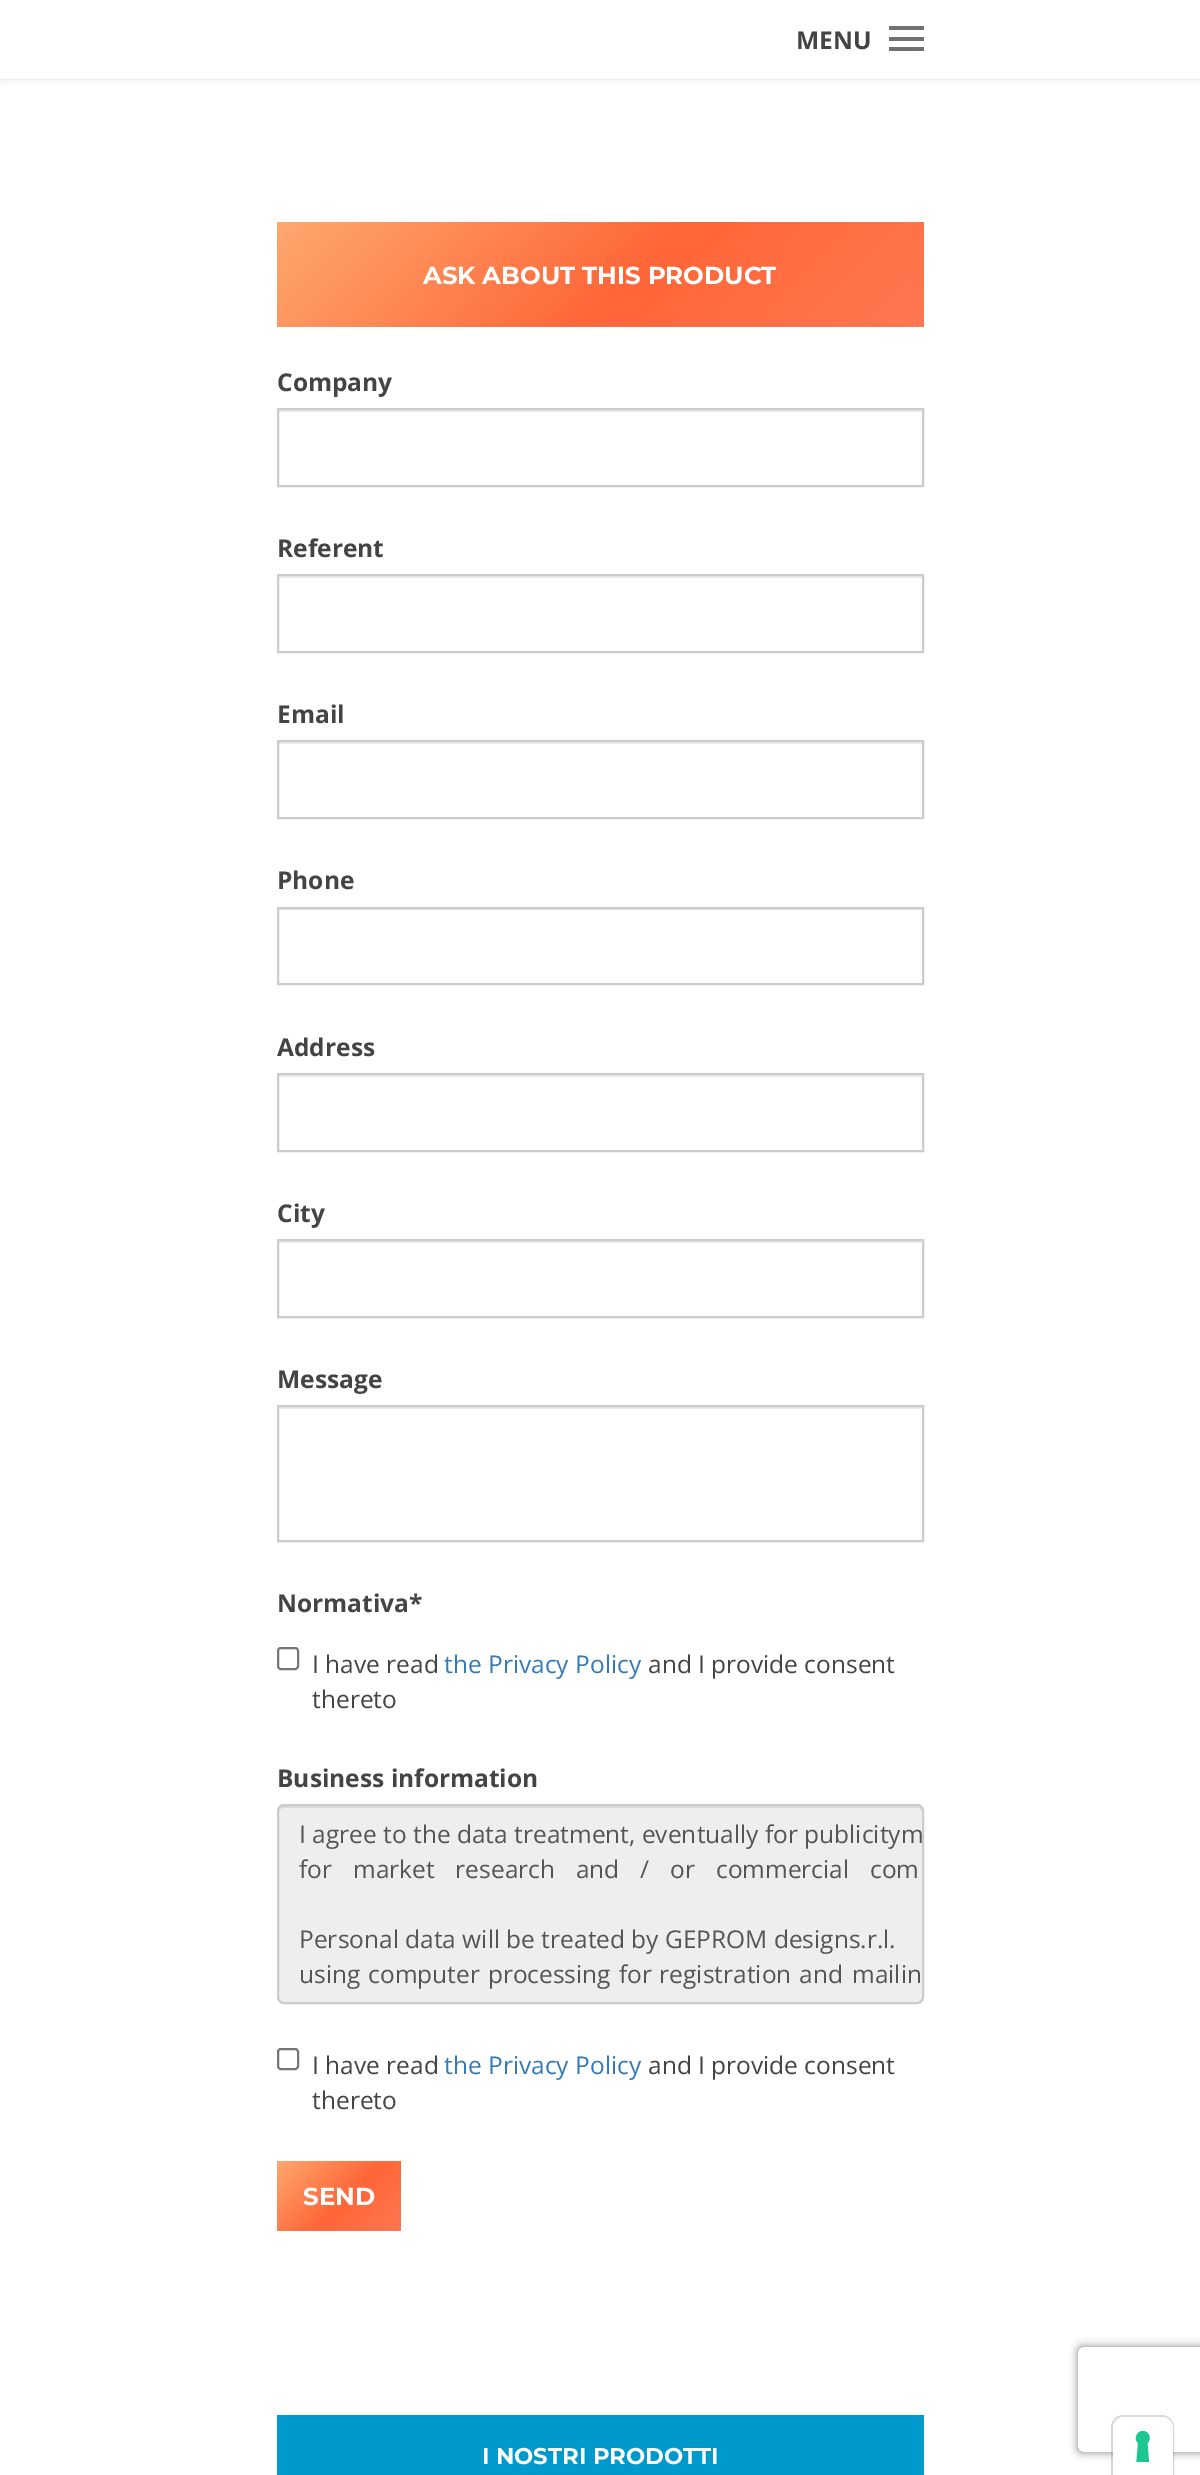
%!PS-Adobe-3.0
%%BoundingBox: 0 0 1200 2475
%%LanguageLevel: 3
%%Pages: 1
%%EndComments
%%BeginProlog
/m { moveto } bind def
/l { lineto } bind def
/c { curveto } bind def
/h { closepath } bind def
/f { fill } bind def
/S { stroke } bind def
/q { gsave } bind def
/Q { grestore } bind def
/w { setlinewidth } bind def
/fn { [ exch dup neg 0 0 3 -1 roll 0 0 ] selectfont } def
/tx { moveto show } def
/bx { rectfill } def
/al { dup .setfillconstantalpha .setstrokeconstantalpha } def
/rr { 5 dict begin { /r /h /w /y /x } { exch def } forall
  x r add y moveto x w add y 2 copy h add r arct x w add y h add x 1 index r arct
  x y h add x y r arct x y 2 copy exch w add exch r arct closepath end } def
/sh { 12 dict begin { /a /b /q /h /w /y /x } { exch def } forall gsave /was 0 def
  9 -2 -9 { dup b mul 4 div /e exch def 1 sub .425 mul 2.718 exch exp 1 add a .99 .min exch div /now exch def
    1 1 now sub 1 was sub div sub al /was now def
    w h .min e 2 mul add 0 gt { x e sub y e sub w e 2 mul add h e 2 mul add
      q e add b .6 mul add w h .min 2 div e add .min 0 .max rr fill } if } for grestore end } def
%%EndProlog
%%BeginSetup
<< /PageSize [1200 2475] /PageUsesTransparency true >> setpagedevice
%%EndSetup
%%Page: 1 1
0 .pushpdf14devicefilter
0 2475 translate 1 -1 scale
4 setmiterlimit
1 setgray
0 0 1200 2475 bx
0.867 setgray
0 0 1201 79 0 3.5 1 sh
1 setgray
0 0 1200 79 bx
/OpenSans-Bold 24.5 fn
0.267 setgray
(MENU) 796 49 tx
0.443 0.439 0.459 setrgbcolor
889 26 35 4 bx
889 47 35 4 bx
889 37 35 4 bx
q 277 222 m 924 222 l 924 327 l 277 327 l h clip newpath
<< /ShadingType 2 /ColorSpace /DeviceRGB /Coords [412 87 788 463] /Extend [true true] /Function << /FunctionType 3 /Domain [0 1] /Functions [<< /FunctionType 2 /Domain [0 1] /C0 [0.996 0.659 0.435] /C1 [1 0.4 0.22] /N 1 >> << /FunctionType 2 /Domain [0 1] /C0 [1 0.4 0.22] /C1 [1 0.467 0.318] /N 1 >>] /Bounds [0.55] /Encode [0 1 0 1] >> >> shfill Q
/Montserrat-Bold 24.5 fn
1 setgray
(ASK ABOUT THIS PRODUCT) 423 284 tx
/OpenSans-Bold 24.5 fn
0.267 setgray
(Company) 277 391 tx
0.925 setgray
278 410 644 2 bx
0.8 setgray
2 w
278 409 645 77 rectstroke
0.267 setgray
(Referent) 277 557 tx
0.925 setgray
278 576 644 2 bx
0.8 setgray
278 575 645 77 rectstroke
0.267 setgray
(Email) 277 723 tx
0.925 setgray
278 742 644 2 bx
0.8 setgray
278 741 645 77 rectstroke
0.267 setgray
(Phone) 277 889 tx
0.925 setgray
278 909 644 1 bx
0.8 setgray
278 908 645 76 rectstroke
0.267 setgray
(Address) 277 1056 tx
0.925 setgray
278 1075 644 2 bx
0.8 setgray
278 1074 645 77 rectstroke
0.267 setgray
(City) 277 1222 tx
0.925 setgray
278 1241 644 2 bx
0.8 setgray
278 1240 645 77 rectstroke
0.267 setgray
(Message) 277 1388 tx
0.925 setgray
278 1407 644 2 bx
0.8 setgray
278 1406 645 135 rectstroke
0.267 setgray
(Normativa*) 277 1612 tx
0.463 setgray
278 1648 20 21 3 rr S
/OpenSans-Regular 24.5 fn
0.267 setgray
(I have read) 312 1673 tx
0.2 0.478 0.718 setrgbcolor
(the Privacy Policy) 444 1673 tx
0.267 setgray
(and I provide consent) 648 1673 tx
(thereto) 312 1708 tx
/OpenSans-Bold 24.5 fn
(Business information) 277 1787 tx
0.933 setgray
277 1804 647 200 7 rr f
0.863 setgray
284 1808 m 917 1808 l 920 1808 922 1810 922 1813 c 922 1811 l 922 1808 920 1806 917 1806 c 283 1806 l 280 1806 278 1808 278 1811 c 278 1813 l 278 1810 281 1808 284 1808 c h f
0.8 setgray
278 1805 645 198 6 rr S
/OpenSans-Regular 24.5 fn
0.333 setgray
(I agree to the data treatment, eventually for publicitym) 299 1843 tx
299 1878 m 14.5 0 32 (for market research and / or commercial) widthshow
(com) 870 1878 tx
(Personal data will be treated by GEPROM designs.r.l.) 299 1948 tx
299 1983 m 1.5 0 32 (using computer processing for registration and) widthshow
(mailin) 852 1983 tx
0.463 setgray
278 2049 20 20 3 rr S
0.267 setgray
(I have read) 312 2074 tx
0.2 0.478 0.718 setrgbcolor
(the Privacy Policy) 444 2074 tx
0.267 setgray
(and I provide consent) 648 2074 tx
(thereto) 312 2109 tx
q 277 2161 m 401 2161 l 401 2231 l 277 2231 l h clip newpath
<< /ShadingType 2 /ColorSpace /DeviceRGB /Coords [290 2148 387 2245] /Extend [true true] /Function << /FunctionType 3 /Domain [0 1] /Functions [<< /FunctionType 2 /Domain [0 1] /C0 [0.996 0.659 0.435] /C1 [1 0.4 0.22] /N 1 >> << /FunctionType 2 /Domain [0 1] /C0 [1 0.4 0.22] /C1 [1 0.467 0.318] /N 1 >>] /Bounds [0.55] /Encode [0 1 0 1] >> >> shfill Q
/Montserrat-Bold 24.5 fn
1 setgray
(SEND) 303 2205 tx
0 0.6 0.8 setrgbcolor
277 2415 647 60 bx
/Montserrat-Bold 22.75 fn
1 setgray
(I NOSTRI PRODOTTI) 482 2464 tx
q
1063 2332 m 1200 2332 l 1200 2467 l 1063 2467 l h 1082 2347 m 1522 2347 l 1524 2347 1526 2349 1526 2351 c 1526 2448 l 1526 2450 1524 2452 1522 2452 c 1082 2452 l 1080 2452 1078 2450 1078 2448 c 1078 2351 l 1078 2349 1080 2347 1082 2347 c h eoclip newpath
0.502 setgray
1078 2347 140 105 4 4.5 1 sh
Q
0.15 al
0 setgray
1123 2416 m 1162 2416 l 1168 2416 1173 2421 1173 2427 c 1173 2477 l 1112 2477 l 1112 2427 l 1112 2421 1117 2416 1123 2416 c h S
1 al
1 setgray
1124 2417 m 1162 2417 l 1168 2417 1173 2422 1173 2428 c 1173 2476 l 1113 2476 l 1113 2428 l 1113 2422 1118 2417 1124 2417 c h f
0.11 0.776 0.569 setrgbcolor
1143 2431 m 1149 2431 1152 2439 1147.5 2443 c 1149 2462 l 1136.5 2462 l 1138 2443 l 1133.5 2439 1136.5 2431 1143 2431 c h eofill
.poppdf14devicefilter showpage
%%EOF
